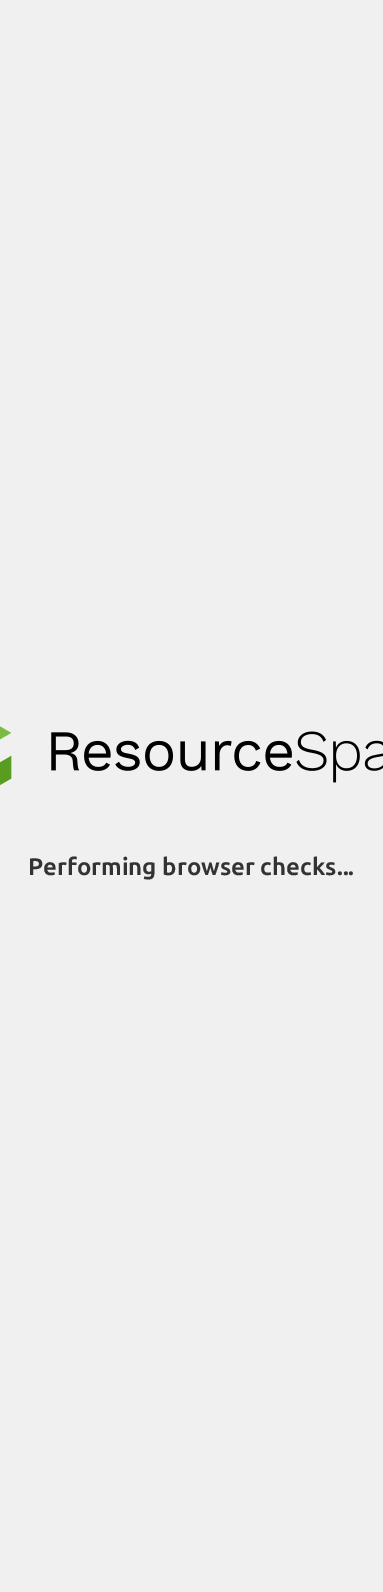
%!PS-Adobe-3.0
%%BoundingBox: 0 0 383 1592
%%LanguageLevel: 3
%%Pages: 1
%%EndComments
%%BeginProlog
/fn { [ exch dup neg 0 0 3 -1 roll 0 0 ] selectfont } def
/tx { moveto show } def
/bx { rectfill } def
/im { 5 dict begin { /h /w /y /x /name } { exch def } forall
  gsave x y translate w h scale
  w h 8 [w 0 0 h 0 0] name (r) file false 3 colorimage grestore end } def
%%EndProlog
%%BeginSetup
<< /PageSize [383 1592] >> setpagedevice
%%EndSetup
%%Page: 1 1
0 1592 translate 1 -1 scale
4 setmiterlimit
0.941 setgray
0 0 383 1592 bx
(image0.raw) 0 726 383 59 im
/Ubuntu-Bold 24 fn
0.2 setgray
(Performing browser checks...) 28 875 tx
showpage
%%EOF
